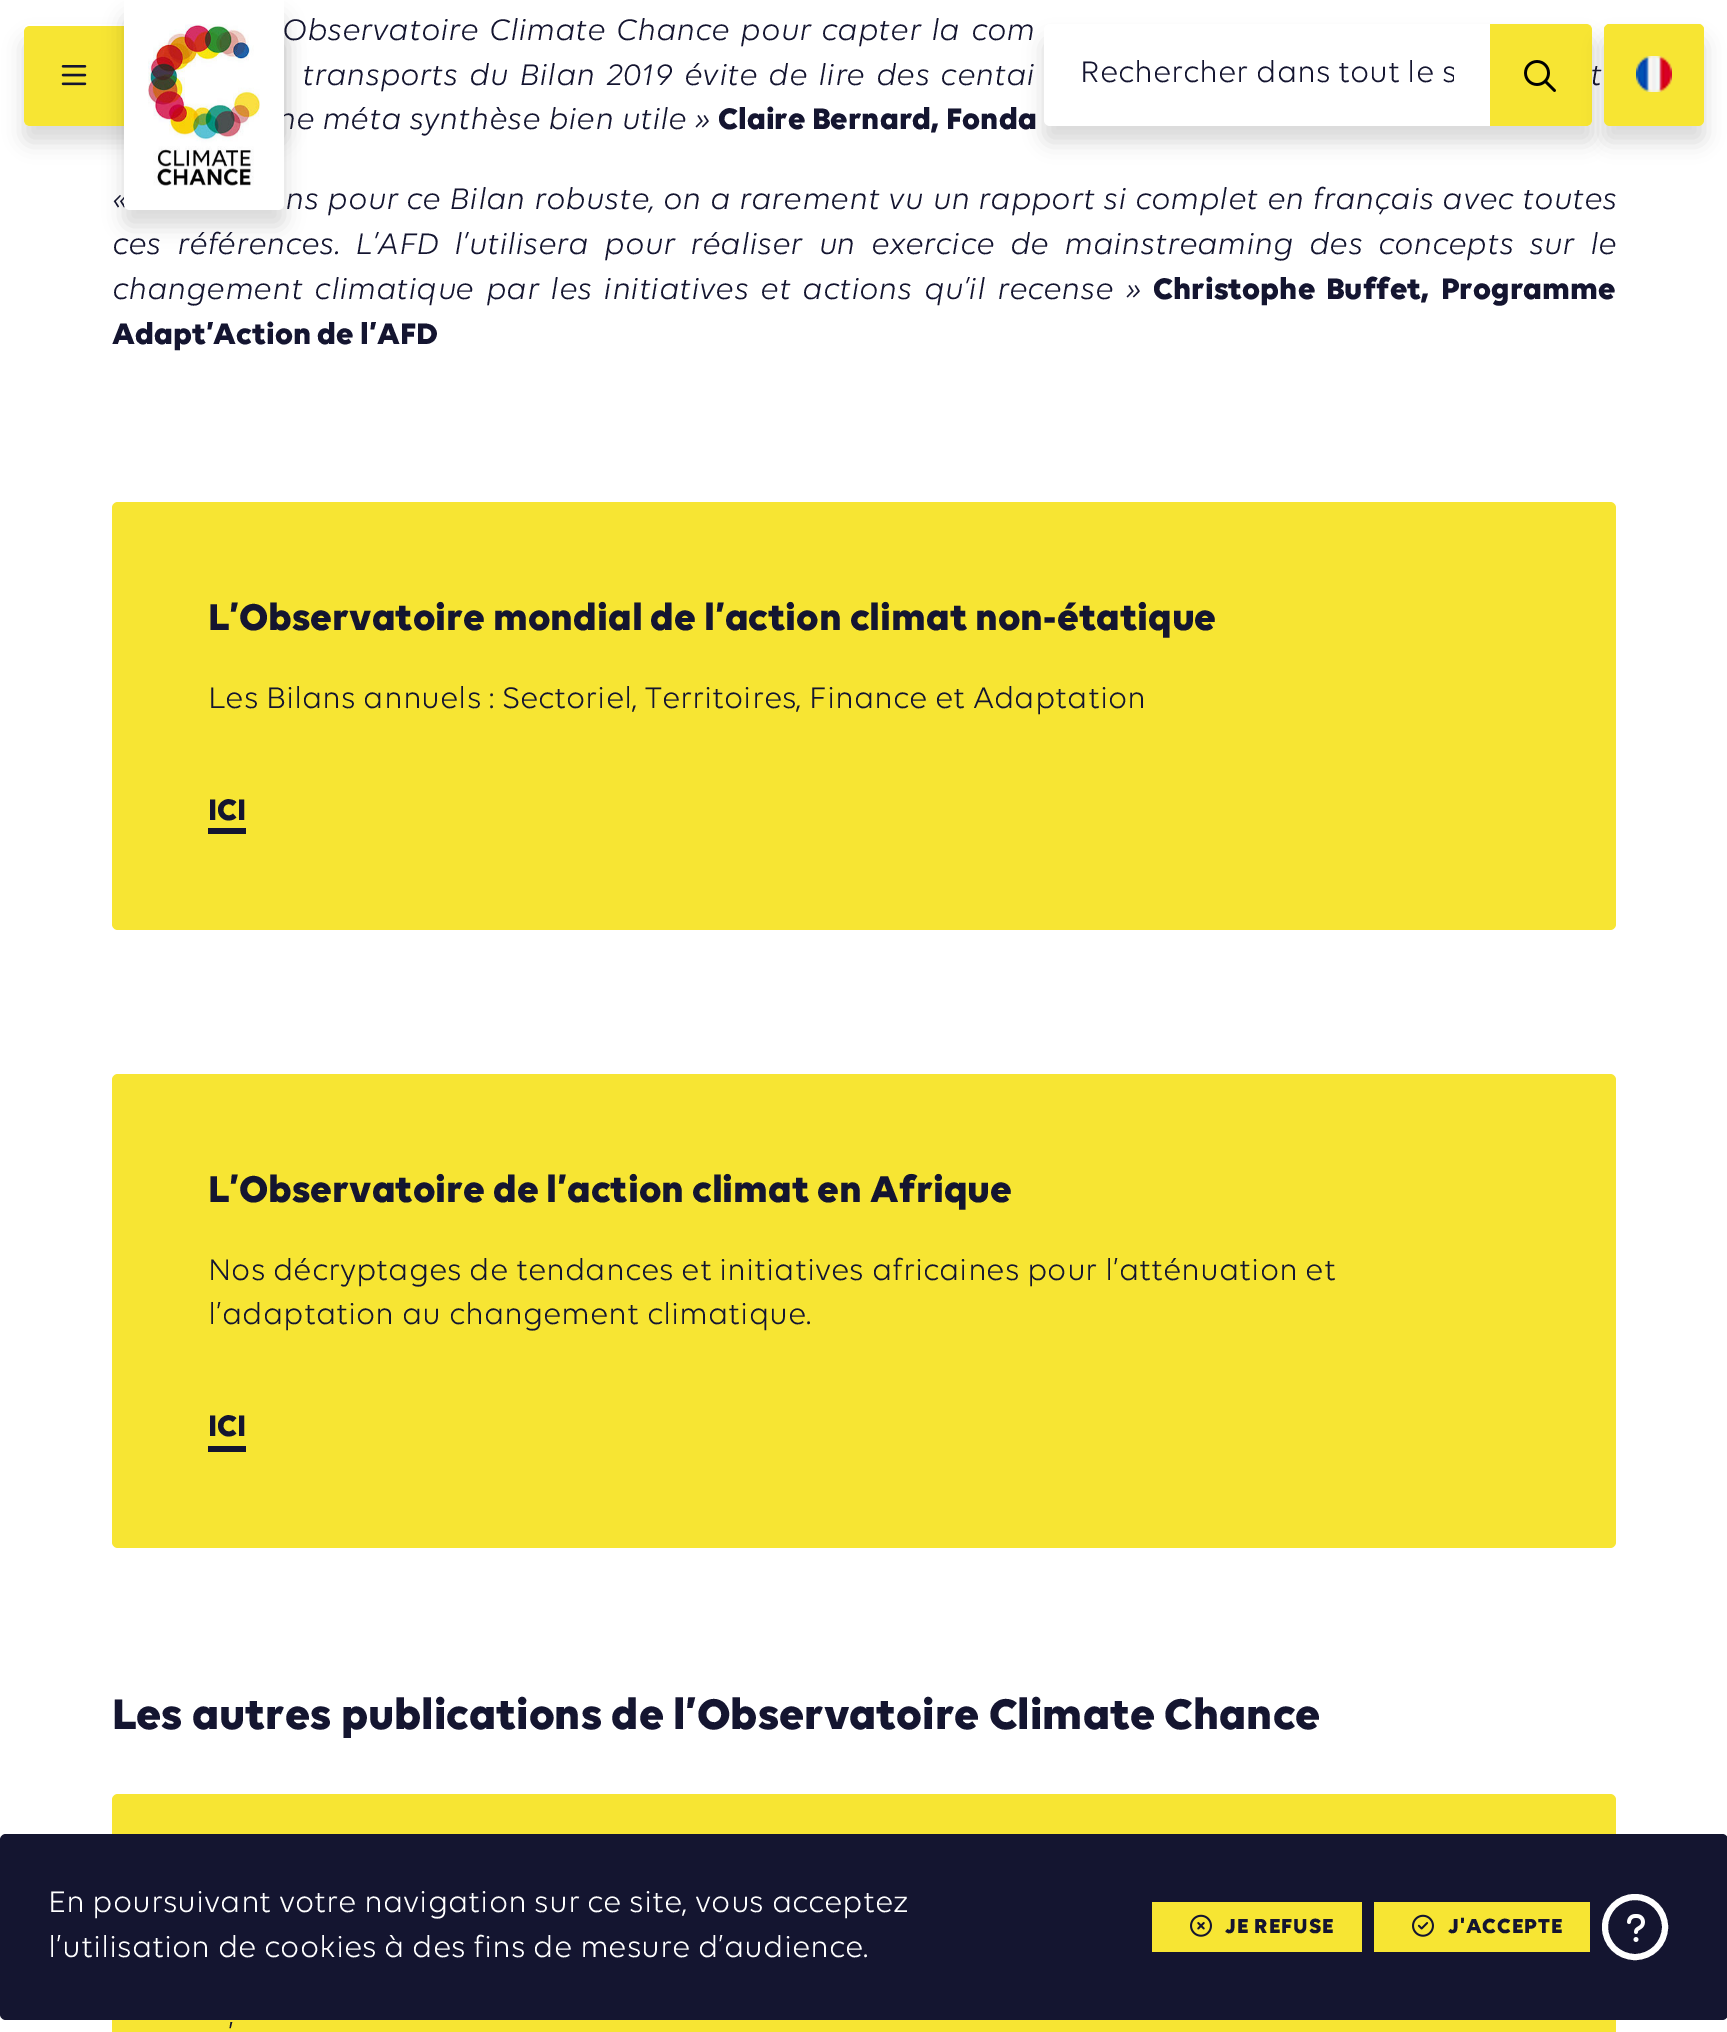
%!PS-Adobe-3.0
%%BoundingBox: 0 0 1727 2032
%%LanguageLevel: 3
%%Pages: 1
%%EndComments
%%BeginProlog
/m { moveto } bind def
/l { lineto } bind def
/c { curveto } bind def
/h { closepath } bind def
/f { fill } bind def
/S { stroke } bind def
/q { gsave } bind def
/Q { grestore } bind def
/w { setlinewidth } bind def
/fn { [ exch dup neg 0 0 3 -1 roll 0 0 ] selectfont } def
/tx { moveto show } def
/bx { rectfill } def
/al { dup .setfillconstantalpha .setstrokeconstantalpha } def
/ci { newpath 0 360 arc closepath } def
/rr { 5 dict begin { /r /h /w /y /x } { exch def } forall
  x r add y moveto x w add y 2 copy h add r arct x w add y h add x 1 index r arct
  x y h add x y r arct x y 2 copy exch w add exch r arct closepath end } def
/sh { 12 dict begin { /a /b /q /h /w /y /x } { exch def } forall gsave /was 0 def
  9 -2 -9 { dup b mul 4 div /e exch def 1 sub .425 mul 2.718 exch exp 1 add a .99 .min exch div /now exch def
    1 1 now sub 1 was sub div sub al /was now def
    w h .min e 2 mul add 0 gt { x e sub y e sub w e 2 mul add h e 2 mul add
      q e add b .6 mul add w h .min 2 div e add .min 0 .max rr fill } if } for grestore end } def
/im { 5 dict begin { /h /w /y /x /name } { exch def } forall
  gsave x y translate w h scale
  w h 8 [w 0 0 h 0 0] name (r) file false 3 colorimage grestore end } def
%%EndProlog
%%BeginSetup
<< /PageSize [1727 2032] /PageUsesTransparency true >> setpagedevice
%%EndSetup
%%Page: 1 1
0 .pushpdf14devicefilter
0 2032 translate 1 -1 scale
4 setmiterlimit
1 setgray
0 0 1727 2032 bx
/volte-Italic 32 fn
0.078 0.082 0.188 setrgbcolor
282 40 m 3 0 32 (Observatoire Climate Chance pour capter la com) widthshow
302 85 m 3.5 0 32 (transports du Bilan 2019 évite de lire des centai) widthshow
1590 85 m 3.5 0 32 (t) widthshow
(ne méta synthèse bien utile ») 277 129 tx
/volte-Regular 32 fn
(Claire Bernard, Fonda) 718 129 tx
/volte-Italic 32 fn
112 209 m 1.1 0 32 («) widthshow
285 209 m 1.1 0 32 (ns pour ce Bilan robuste, on a rarement vu un rapport si complet en français avec toutes) widthshow
112 254 m 7.9 0 32 (ces références. L’AFD l’utilisera pour réaliser un exercice de mainstreaming des concepts sur le) widthshow
112 299 m 4.25 0 32 (changement climatique par les initiatives et actions qu’il recense ») widthshow
/volte-Regular 32 fn
1153 299 m 4.25 0 32 (Christophe Buffet, Programme) widthshow
(Adapt’Action de l’AFD) 112 344 tx
0.969 0.898 0.2 setrgbcolor
112 502 1504 428 6 rr f
/volte-Regular 40 fn
0.078 0.082 0.188 setrgbcolor
(L’Observatoire mondial de l’action climat non-étatique) 208 630 tx
/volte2-Regular 32 fn
(Les Bilans annuels : Sectoriel, Territoires, Finance et Adaptation) 208 708 tx
/volte-Regular 32 fn
(ICI) 208 820 tx
208 828 38 6 bx
0.969 0.898 0.2 setrgbcolor
112 1074 1504 474 6 rr f
/volte-Regular 40 fn
0.078 0.082 0.188 setrgbcolor
(L’Observatoire de l’action climat en Afrique) 208 1202 tx
/volte2-Regular 32 fn
(Nos décryptages de tendances et initiatives africaines pour l’atténuation et) 208 1280 tx
(l’adaptation au changement climatique.) 208 1324 tx
/volte-Regular 32 fn
(ICI) 208 1436 tx
208 1446 38 6 bx
/volte-Regular 46 fn
(Les autres publications de l’Observatoire Climate Chance) 112 1729 tx
0.969 0.898 0.2 setrgbcolor
112 1794 1504 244 6 rr f
/volte2-Regular 32 fn
0.078 0.082 0.188 setrgbcolor
(’) 228 2044 tx
0 setgray
24 40 260 102 6 10 0.15 sh
1 setgray
24 24 260 102 6 rr f
0.969 0.898 0.2 setrgbcolor
30 26 m 124 26 l 124 126 l 30 126 l 26.5 126 24 123.5 24 120 c 24 32 l 24 28.5 26.5 26 30 26 c h f
(image0.raw) 61 65 26 21 im
0 setgray
124 16 160 210 6 10 0.15 sh
1 setgray
124 0 m 284 0 l 284 204 l 284 207.5 281.5 210 278 210 c 130 210 l 126.5 210 124 207.5 124 204 c h f
(image1.raw) 148 24 112 162 im
0 setgray
1044 40 548 102 6 10 0.15 sh
1 setgray
1044 24 548 102 6 rr f
q
1080 56 374 38 rectclip
0.078 0.082 0.188 setrgbcolor
(Rechercher dans tout le s) 1080 82 tx
Q
0.969 0.898 0.2 setrgbcolor
1490 24 m 1586 24 l 1589.5 24 1592 26.5 1592 30 c 1592 120 l 1592 123.5 1589.5 126 1586 126 c 1490 126 l h f
(image2.raw) 1524 60 32 32 im
0 setgray
1604 40 100 102 6 10 0.15 sh
0.969 0.898 0.2 setrgbcolor
1604 24 100 102 6 rr f
1604 24 100 100 6 rr f
(image3.raw) 1636 56 36 36 im
0.078 0.082 0.188 setrgbcolor
0 1834 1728 186 6 rr f
1 setgray
(En poursuivant votre navigation sur ce site, vous acceptez) 48 1912 tx
(l’utilisation de cookies à des fins de mesure d’audience.) 48 1957 tx
0.969 0.898 0.2 setrgbcolor
1152 1902 210 50 bx
(image4.raw) 1190 1914 22 23 im
/volte-Regular 22 fn
0.078 0.082 0.188 setrgbcolor
1225 1933 m 1 0 (JE REFUSE) ashow
0.969 0.898 0.2 setrgbcolor
1374 1902 216 50 bx
(image5.raw) 1412 1914 22 23 im
0.078 0.082 0.188 setrgbcolor
1448 1933 m 1 0 (J'ACCEPTE) ashow
1 setgray
6 w
1635 1927 30 ci S
(image6.raw) 1627 1914 18 28 im
.poppdf14devicefilter showpage
%%EOF
